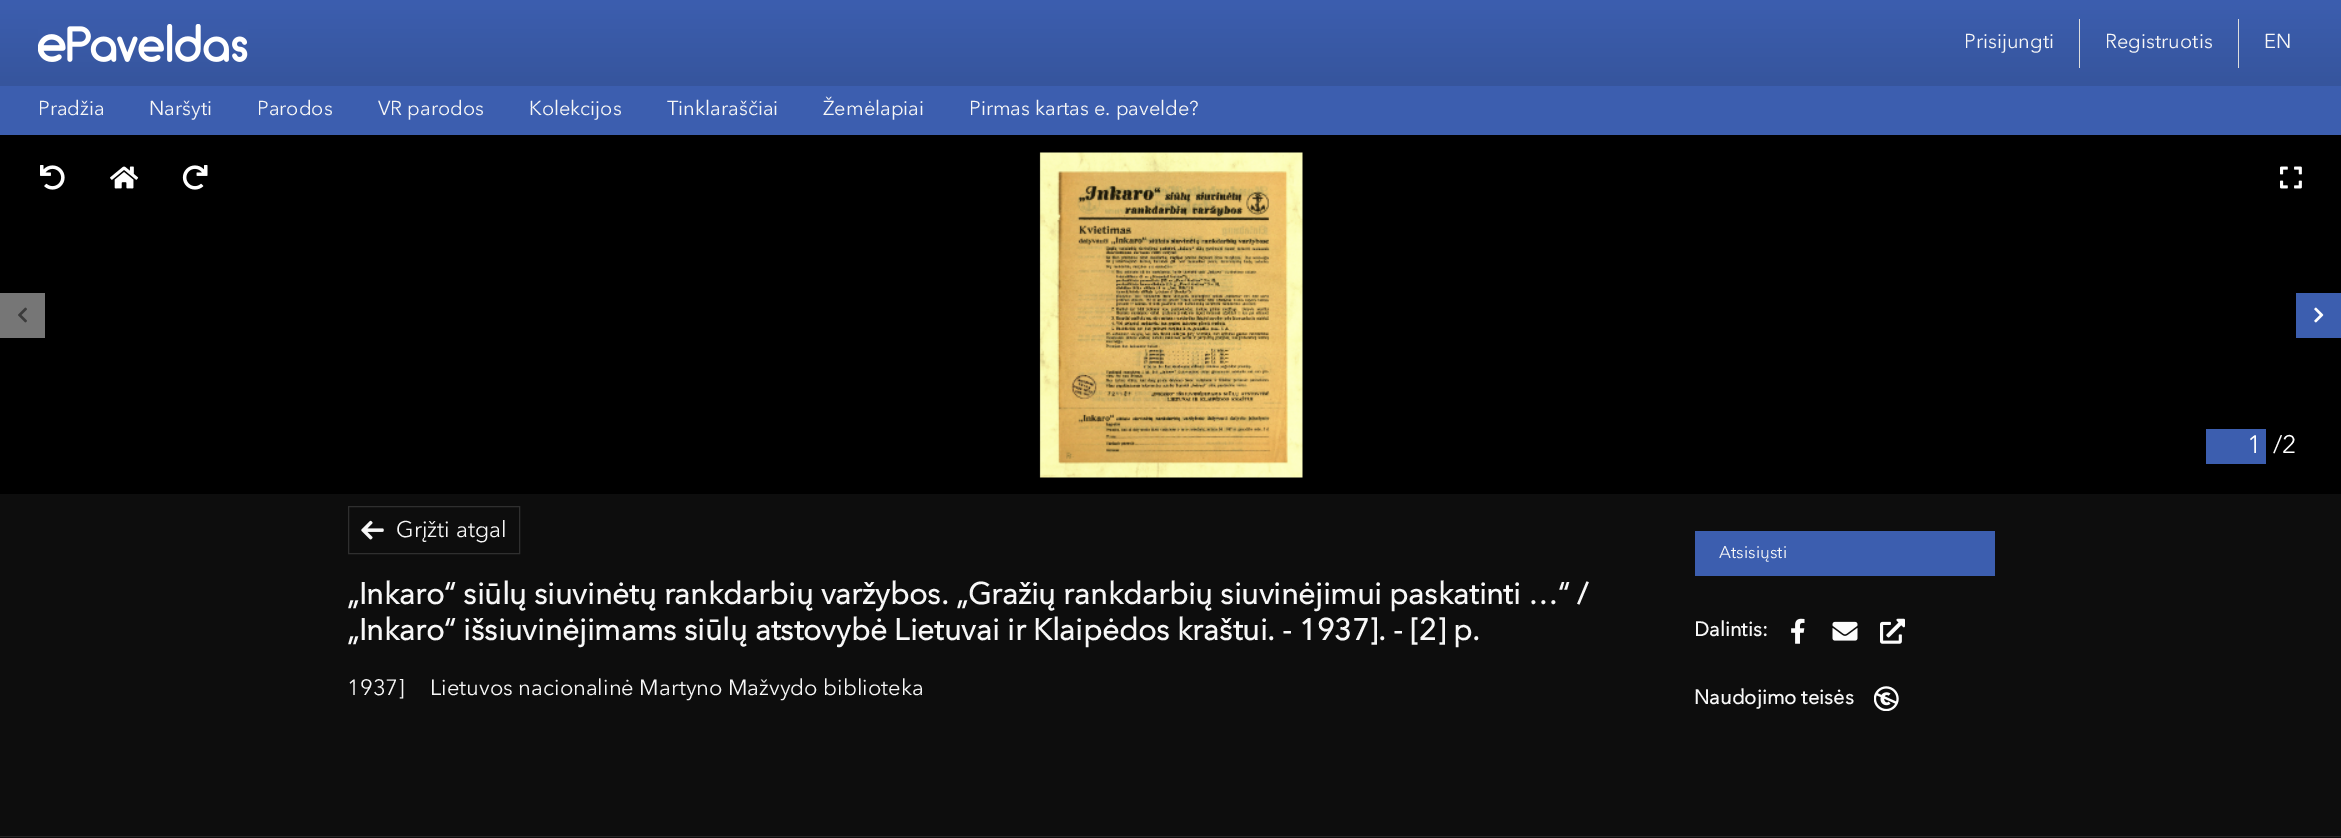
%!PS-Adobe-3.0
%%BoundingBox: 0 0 2341 838
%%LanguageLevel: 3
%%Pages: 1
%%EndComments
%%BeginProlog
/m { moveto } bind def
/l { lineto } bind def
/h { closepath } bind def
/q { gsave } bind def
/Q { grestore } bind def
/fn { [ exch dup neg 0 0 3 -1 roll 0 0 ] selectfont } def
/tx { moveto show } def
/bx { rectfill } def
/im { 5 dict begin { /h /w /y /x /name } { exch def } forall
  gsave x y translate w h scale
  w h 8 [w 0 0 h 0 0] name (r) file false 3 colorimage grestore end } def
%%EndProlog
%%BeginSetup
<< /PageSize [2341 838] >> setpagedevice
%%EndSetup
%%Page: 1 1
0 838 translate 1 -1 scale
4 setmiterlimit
0.051 setgray
0 0 2341 838 bx
0.235 0.369 0.686 setrgbcolor
0 86 2341 49 bx
q 0 0 m 2341 0 l 2341 86 l 0 86 l h clip newpath
<< /ShadingType 2 /ColorSpace /DeviceRGB /Coords [1171 0 1171 86] /Extend [true true] /Function << /FunctionType 2 /Domain [0 1] /C0 [0.235 0.369 0.686] /C1 [0.212 0.333 0.616] /N 1 >> >> shfill Q
(image0.raw) 38 24 210 38 im
/AvenirNext-Regular 20 fn
0.969 setgray
(Prisijungti) 1964 48 tx
0.871 setgray
2079 19 1 49 bx
0.969 setgray
(Registruotis) 2105 48 tx
0.871 setgray
2238 19 1 49 bx
0.969 setgray
(EN) 2264 48 tx
(Pradžia) 38 115 tx
(Naršyti) 149 115 tx
(Parodos) 257 115 tx
(VR parodos) 378 115 tx
(Kolekcijos) 529 115 tx
(Tinklaraščiai) 667 115 tx
(Žemėlapiai) 823 115 tx
(Pirmas kartas e. pavelde?) 969 115 tx
0 setgray
0 135 2341 359 bx
(image1.raw) 1039 152 264 326 im
(image2.raw) 40 165 25 25 im
(image3.raw) 110 166 29 23 im
(image4.raw) 182 165 26 25 im
(image5.raw) 2280 166 22 23 im
0.463 setgray
0 293 45 45 bx
(image6.raw) 18 307 9 16 im
0.235 0.369 0.686 setrgbcolor
2296 293 45 45 bx
(image7.raw) 2314 307 10 16 im
2206 429 60 35 bx
/AvenirNext-Regular 25 fn
1 setgray
(1) 2247 453 tx
(/2) 2273 453 tx
0.184 setgray
348.5 506.5 171 47 rectstroke
(image8.raw) 361 520 23 20 im
/AvenirNext-Regular 22.5 fn
0.969 setgray
(Grįžti atgal) 396 537 tx
/AvenirNext-Bold 30 fn
(„Inkaro“ siūlų siuvinėtų rankdarbių varžybos. „Gražių rankdarbių siuvinėjimui paskatinti …“ /) 347 604 tx
(„Inkaro“ išsiuvinėjimams siūlų atstovybė Lietuvai ir Klaipėdos kraštui. - 1937]. - [2] p.) 347 640 tx
/AvenirNext-Regular 22 fn
(1937]) 347 695 tx
(Lietuvos nacionalinė Martyno Mažvydo biblioteka) 430 695 tx
0.235 0.369 0.686 setrgbcolor
1695 531 300 45 bx
/AvenirNext-Regular 17 fn
0.969 setgray
(Atsisiųsti) 1719 558 tx
/AvenirNext-Bold 20 fn
(Dalintis:) 1694 636 tx
(image9.raw) 1791 618 14 26 im
(image10.raw) 1832 621 26 20 im
(image11.raw) 1880 618 25 26 im
(Naudojimo teisės) 1694 704 tx
(image12.raw) 1874 686 25 25 im
0.149 setgray
0 836 2341 1 bx
showpage
%%EOF
